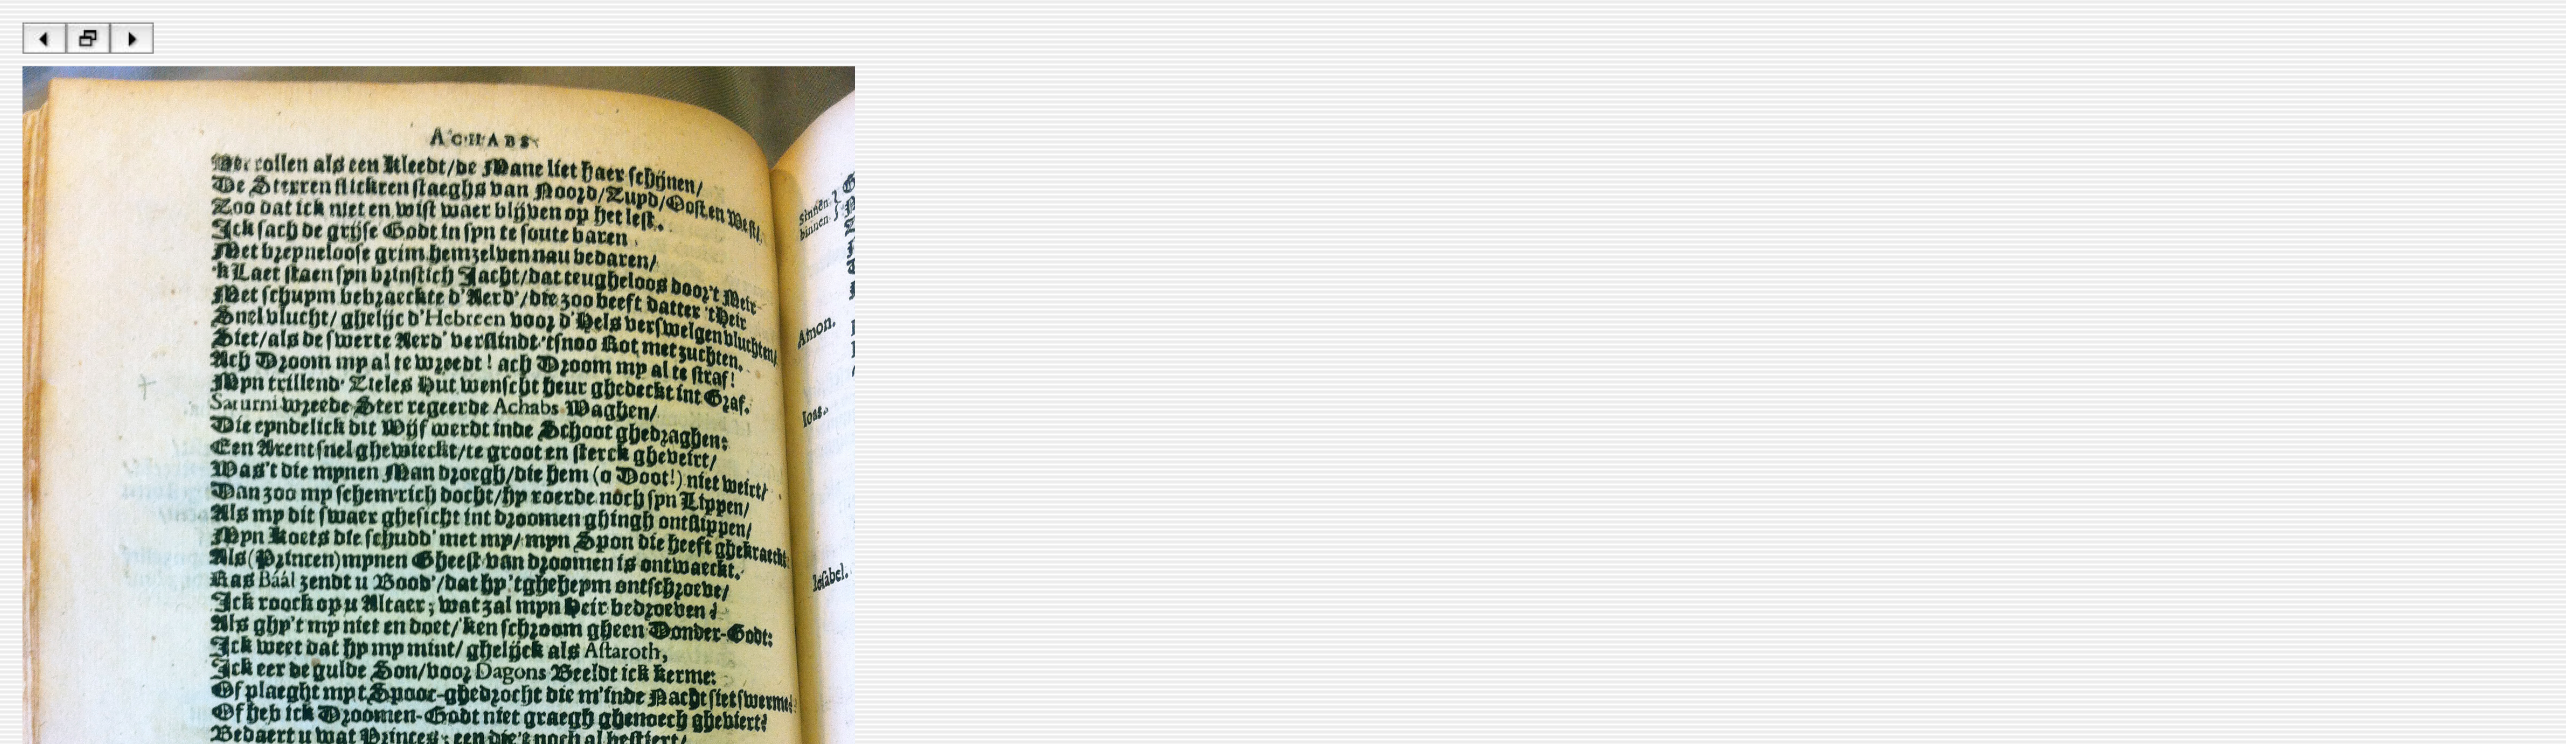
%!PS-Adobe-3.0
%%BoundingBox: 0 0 2566 744
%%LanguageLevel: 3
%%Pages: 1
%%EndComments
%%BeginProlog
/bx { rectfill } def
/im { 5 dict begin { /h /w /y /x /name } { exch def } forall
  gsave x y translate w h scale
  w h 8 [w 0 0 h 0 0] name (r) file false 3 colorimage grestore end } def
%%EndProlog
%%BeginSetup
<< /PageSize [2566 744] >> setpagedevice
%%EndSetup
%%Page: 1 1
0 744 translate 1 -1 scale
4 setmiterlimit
1 setgray
0 0 2566 744 bx
(image0.raw) 0 0 2566 744 im
(image1.raw) 22 22 45 32 im
(image2.raw) 66 22 44 32 im
(image3.raw) 110 22 44 32 im
(image4.raw) 22 66 833 678 im
showpage
%%EOF
